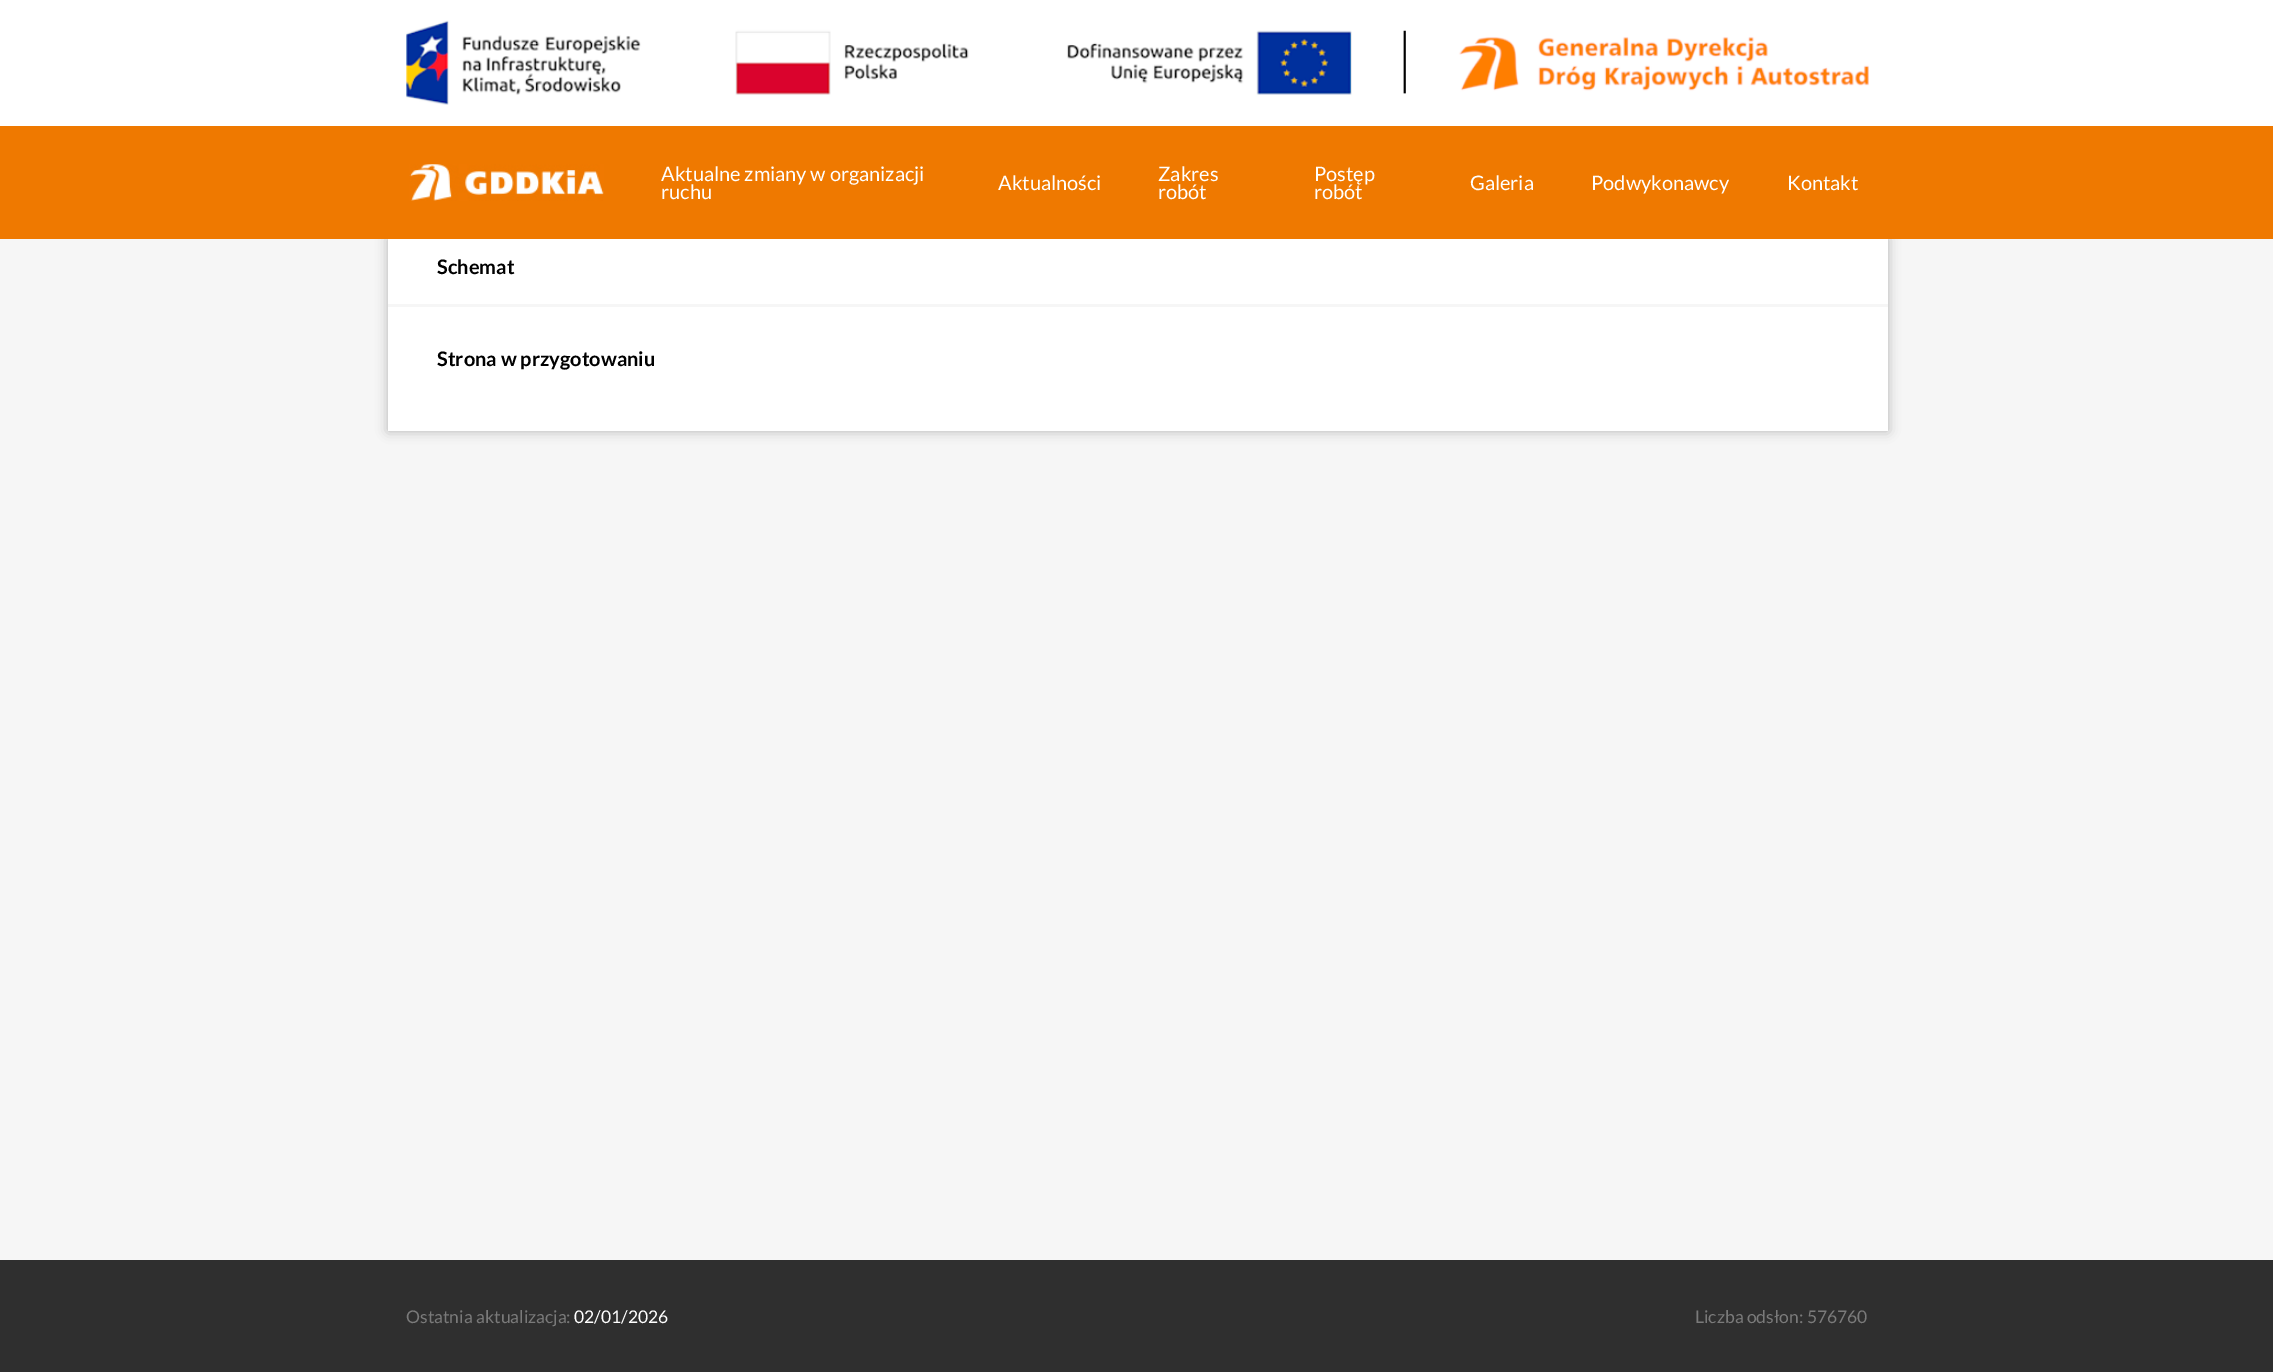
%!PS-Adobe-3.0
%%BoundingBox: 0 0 2273 1372
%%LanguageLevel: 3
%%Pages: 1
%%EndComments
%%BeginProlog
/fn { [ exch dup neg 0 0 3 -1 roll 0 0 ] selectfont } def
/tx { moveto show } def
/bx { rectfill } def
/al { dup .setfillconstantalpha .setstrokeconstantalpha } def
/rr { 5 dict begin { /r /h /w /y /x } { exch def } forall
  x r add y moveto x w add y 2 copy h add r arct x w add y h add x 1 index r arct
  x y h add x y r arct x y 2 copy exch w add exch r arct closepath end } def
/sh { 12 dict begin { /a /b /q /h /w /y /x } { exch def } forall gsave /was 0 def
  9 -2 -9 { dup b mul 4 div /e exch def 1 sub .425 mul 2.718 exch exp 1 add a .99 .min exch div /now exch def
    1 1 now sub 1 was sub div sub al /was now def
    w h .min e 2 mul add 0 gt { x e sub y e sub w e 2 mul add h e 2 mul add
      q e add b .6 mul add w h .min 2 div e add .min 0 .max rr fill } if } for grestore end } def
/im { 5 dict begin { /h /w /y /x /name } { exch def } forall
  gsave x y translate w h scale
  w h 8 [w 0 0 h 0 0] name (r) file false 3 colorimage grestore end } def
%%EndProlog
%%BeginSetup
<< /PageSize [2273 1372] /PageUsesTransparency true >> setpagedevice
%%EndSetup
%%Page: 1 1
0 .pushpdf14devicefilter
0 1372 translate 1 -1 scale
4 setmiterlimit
0.965 setgray
0 0 2273 1372 bx
1 setgray
0 0 2273 126 bx
(image0.raw) 406 20 1463 85 im
0.702 setgray
388 239 1500 192 0 6 1 sh
0.937 0.475 0 setrgbcolor
0 126 2273 113 bx
(image1.raw) 409 164 195 37 im
/Lato-Regular 20 fn
1 setgray
(Aktualne zmiany w organizacji) 661 181 tx
(ruchu) 661 199 tx
(Aktualności) 998 190 tx
(Zakres) 1158 181 tx
(robót) 1158 199 tx
(Postęp) 1314 181 tx
(robót) 1314 199 tx
(Galeria) 1470 190 tx
(Podwykonawcy) 1591 190 tx
(Kontakt) 1787 190 tx
388 239 1500 192 bx
0.965 setgray
388 304 1500 3 bx
/Lato-Bold 20 fn
0 setgray
(Schemat) 437 274 tx
(Strona w przygotowaniu) 437 366 tx
0.184 setgray
0 1260 2273 112 bx
/Lato-Regular 17.5 fn
0.478 setgray
(Ostatnia aktualizacja:) 406 1323 tx
1 setgray
(02/01/2026) 574 1323 tx
0.478 setgray
(Liczba odsłon: 576760) 1695 1323 tx
.poppdf14devicefilter showpage
%%EOF
